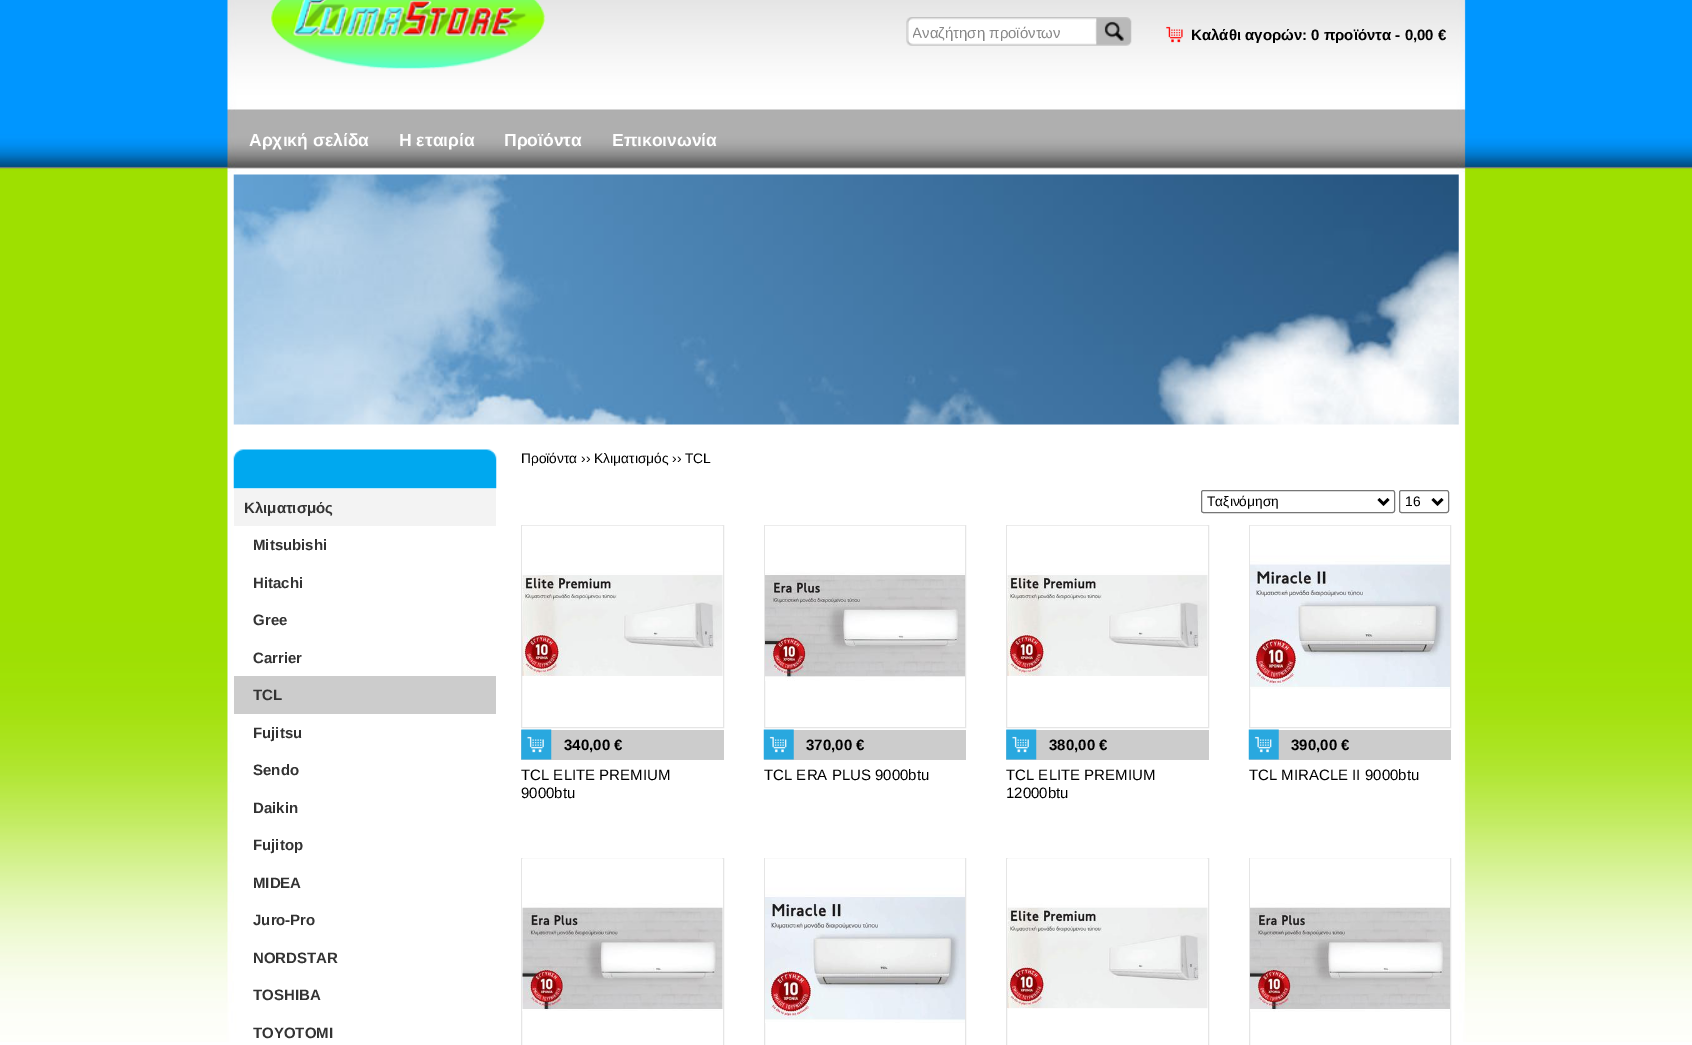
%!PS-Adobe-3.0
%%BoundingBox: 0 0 1692 1045
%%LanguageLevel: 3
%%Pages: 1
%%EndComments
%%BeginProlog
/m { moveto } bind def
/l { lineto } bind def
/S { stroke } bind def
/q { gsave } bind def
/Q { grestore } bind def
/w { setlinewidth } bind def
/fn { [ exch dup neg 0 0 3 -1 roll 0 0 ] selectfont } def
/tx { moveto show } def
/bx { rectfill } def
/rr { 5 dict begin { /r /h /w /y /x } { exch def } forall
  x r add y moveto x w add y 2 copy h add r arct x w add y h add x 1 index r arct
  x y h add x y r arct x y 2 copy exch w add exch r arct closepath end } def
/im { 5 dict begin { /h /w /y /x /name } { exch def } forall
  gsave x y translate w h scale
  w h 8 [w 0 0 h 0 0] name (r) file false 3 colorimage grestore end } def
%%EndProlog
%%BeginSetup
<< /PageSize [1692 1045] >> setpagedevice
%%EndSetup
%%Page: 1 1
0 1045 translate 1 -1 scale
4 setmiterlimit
1 setgray
0 0 1692 1045 bx
(image0.raw) 0 0 1692 1042 im
(image1.raw) 271 0 275 69 im
(image2.raw) 906 17 194 29 im
q
913 24 181 17 rectclip
/LiberationSans-Regular 15 fn
0.533 setgray
(Αναζήτηση προϊόντων) 912 38 tx
Q
(image3.raw) 1100 17 32 29 im
(image4.raw) 1166 26 17 17 im
/LiberationSans-Bold 15 fn
0 setgray
(Καλάθι αγορών: 0 προϊόντα - 0,00 €) 1191 40 tx
/LiberationSans-Bold 17.5 fn
1 setgray
(Αρχική σελίδα) 249 146 tx
(Η εταιρία) 399 146 tx
(Προϊόντα) 504 146 tx
(Επικοινωνία) 612 146 tx
234 173 1225 3 bx
(image5.raw) 233 174 1226 251 im
234 425 1225 577 bx
(image6.raw) 233 449 264 40 im
0.953 setgray
234 489 262 37 bx
/LiberationSans-Bold 15 fn
0.2 setgray
(Κλιματισμός) 244 513 tx
(Mitsubishi) 253 550 tx
(Hitachi) 253 588 tx
(Gree) 253 625 tx
(Carrier) 253 663 tx
0.8 setgray
234 676 262 38 bx
0.2 setgray
(TCL) 253 700 tx
(Fujitsu) 253 738 tx
(Sendo) 253 775 tx
(Daikin) 253 813 tx
(Fujitop) 253 850 tx
(MIDEA) 253 888 tx
(Juro-Pro) 253 925 tx
(NORDSTAR) 253 963 tx
(TOSHIBA) 253 1000 tx
(TOYOTOMI) 253 1038 tx
/LiberationSans-Regular 13.75 fn
0 setgray
(Προϊόντα ›› Κλιματισμός ›› TCL) 521 463 tx
0.463 setgray
1201.5 490.5 193 22 2 rr S
0 setgray
2.5 w
1378.5 499 m 1383.5 504 l 1388.5 499 l S
(Ταξινόμηση) 1207 506 tx
0.463 setgray
1 w
1399.5 490.5 49 22 2 rr S
0 setgray
2.5 w
1432.5 499 m 1437.5 504 l 1442.5 499 l S
(16) 1405 506 tx
0.898 setgray
1 w
521.5 525.5 202 202 rectstroke
(image7.raw) 522 525 201 151 im
0.8 setgray
521 730 203 30 bx
(image8.raw) 521 729 31 31 im
/LiberationSans-Bold 15 fn
0 setgray
(340,00 €) 564 750 tx
/LiberationSans-Regular 15 fn
(TCL ELITE PREMIUM) 521 780 tx
(9000btu) 521 798 tx
0.898 setgray
764.5 525.5 201 202 rectstroke
(image9.raw) 765 525 200 156 im
0.8 setgray
764 730 202 30 bx
(image10.raw) 763 729 31 31 im
/LiberationSans-Bold 15 fn
0 setgray
(370,00 €) 806 750 tx
/LiberationSans-Regular 15 fn
(TCL ERA PLUS 9000btu) 764 780 tx
0.898 setgray
1006.5 525.5 202 202 rectstroke
(image11.raw) 1007 525 201 151 im
0.8 setgray
1006 730 203 30 bx
(image12.raw) 1006 729 31 31 im
/LiberationSans-Bold 15 fn
0 setgray
(380,00 €) 1049 750 tx
/LiberationSans-Regular 15 fn
(TCL ELITE PREMIUM) 1006 780 tx
(12000btu) 1006 798 tx
0.898 setgray
1249.5 525.5 201 202 rectstroke
(image13.raw) 1250 525 200 164 im
0.8 setgray
1249 730 202 30 bx
(image10.raw) 1248 729 31 31 im
/LiberationSans-Bold 15 fn
0 setgray
(390,00 €) 1291 750 tx
/LiberationSans-Regular 15 fn
(TCL MIRACLE II 9000btu) 1249 780 tx
0.898 setgray
521.5 858.5 202 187 rectstroke
(image14.raw) 522 858 201 153 im
764.5 858.5 201 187 rectstroke
(image15.raw) 765 858 200 165 im
1006.5 858.5 202 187 rectstroke
(image16.raw) 1007 858 201 151 im
1249.5 858.5 201 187 rectstroke
(image17.raw) 1250 858 200 154 im
showpage
%%EOF
